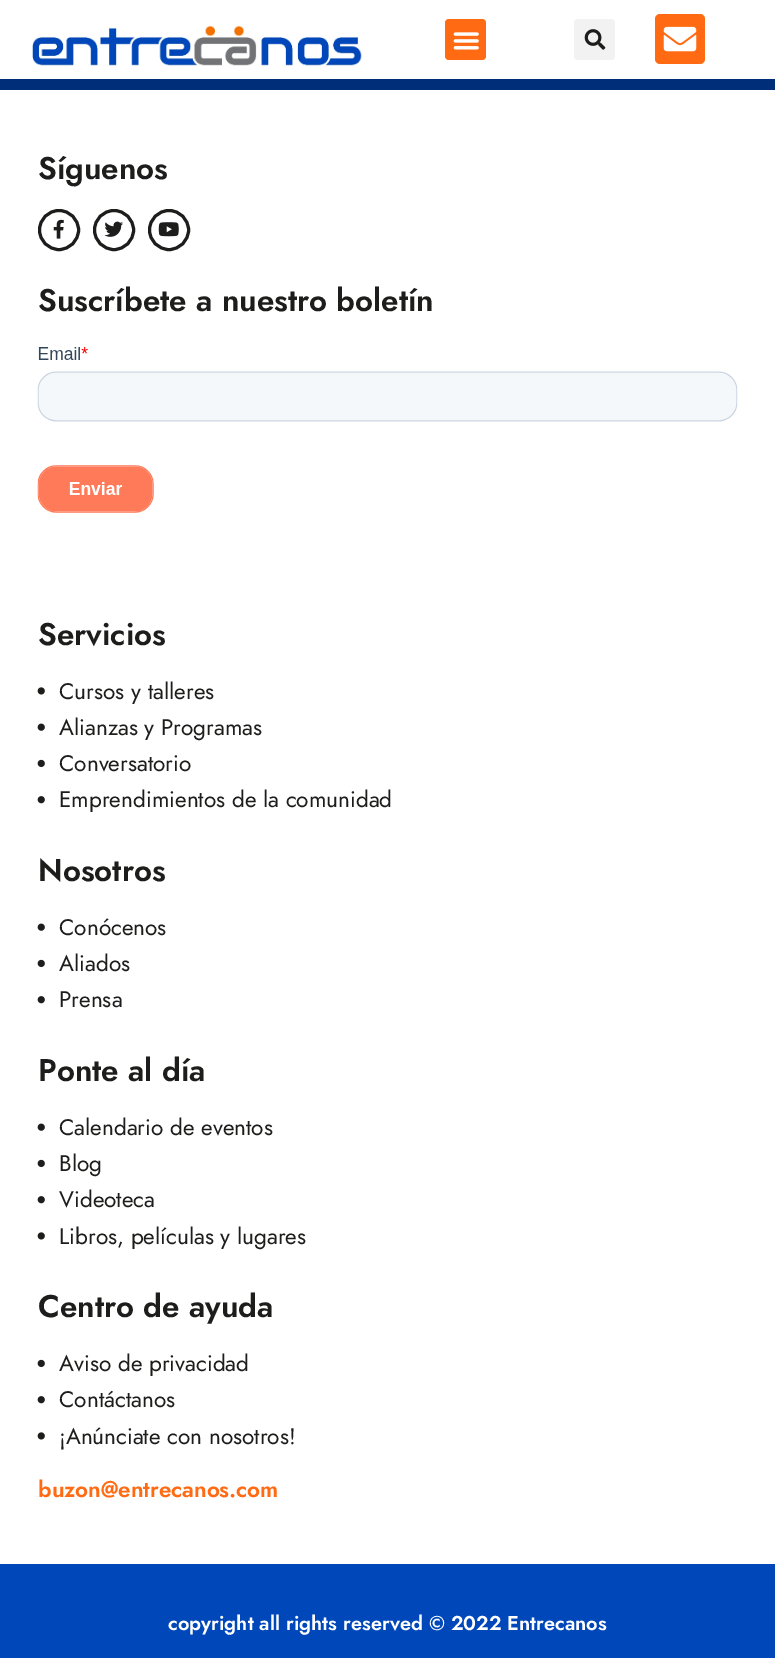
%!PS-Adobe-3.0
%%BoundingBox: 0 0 775 1658
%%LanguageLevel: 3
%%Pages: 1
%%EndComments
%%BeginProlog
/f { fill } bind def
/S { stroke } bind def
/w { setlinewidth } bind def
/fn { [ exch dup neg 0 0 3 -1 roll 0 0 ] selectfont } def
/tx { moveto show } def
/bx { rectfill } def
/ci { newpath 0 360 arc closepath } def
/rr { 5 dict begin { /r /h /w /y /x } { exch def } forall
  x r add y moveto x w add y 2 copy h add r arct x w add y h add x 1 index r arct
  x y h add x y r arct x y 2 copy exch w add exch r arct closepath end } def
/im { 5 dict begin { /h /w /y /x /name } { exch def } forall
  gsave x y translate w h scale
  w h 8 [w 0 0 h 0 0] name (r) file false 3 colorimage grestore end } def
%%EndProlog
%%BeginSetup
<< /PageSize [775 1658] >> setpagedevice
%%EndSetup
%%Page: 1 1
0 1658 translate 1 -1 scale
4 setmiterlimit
0 0.278 0.729 setrgbcolor
0 0 775 1658 bx
1 setgray
0 0 775 79 bx
(image0.raw) 32 25 330 41 im
1 0.416 0.075 setrgbcolor
445 19 41 41 4 rr f
(image1.raw) 453 32 26 18 im
0.949 setgray
574 19 41 41 4 rr f
(image2.raw) 584 29 22 21 im
1 0.416 0.075 setrgbcolor
655 14 50 50 5 rr f
(image3.raw) 663 26 34 26 im
0.004 0.18 0.471 setrgbcolor
0 79 775 11 bx
1 setgray
0 90 775 1474 bx
/Jost-SemiBold 31.25 fn
0.114 0.114 0.11 setrgbcolor
(Síguenos) 38 179 tx
3 w
59 230 19.5 ci S
(image4.raw) 53 219 11 20 im
114 230 19.5 ci S
(image5.raw) 104 221 19 16 im
169 230 19.5 ci S
(image6.raw) 158 222 21 15 im
(Suscríbete a nuestro boletín) 38 311 tx
(image7.raw) 37 347 701 166 im
(Servicios) 38 645 tx
(image8.raw) 37 687 8 8 im
/Jost-Regular 22.5 fn
(Cursos y talleres) 59 699 tx
(image9.raw) 37 723 8 8 im
(Alianzas y Programas) 59 735 tx
(image10.raw) 37 759 8 9 im
(Conversatorio) 59 771 tx
(image11.raw) 37 796 8 8 im
(Emprendimientos de la comunidad) 59 807 tx
/Jost-SemiBold 31.25 fn
(Nosotros) 38 881 tx
(image9.raw) 37 923 8 8 im
/Jost-Regular 22.5 fn
(Conócenos) 59 935 tx
(image10.raw) 37 959 8 9 im
(Aliados) 59 971 tx
(image11.raw) 37 996 8 8 im
(Prensa) 59 1007 tx
/Jost-SemiBold 31.25 fn
(Ponte al día) 38 1081 tx
(image9.raw) 37 1123 8 8 im
/Jost-Regular 22.5 fn
(Calendario de eventos) 59 1135 tx
(image10.raw) 37 1159 8 9 im
(Blog) 59 1171 tx
(image11.raw) 37 1196 8 8 im
(Videoteca) 59 1207 tx
(image8.raw) 37 1232 8 8 im
(Libros, películas y lugares) 59 1244 tx
/Jost-SemiBold 31.25 fn
(Centro de ayuda) 38 1317 tx
(image10.raw) 37 1359 8 9 im
/Jost-Regular 22.5 fn
(Aviso de privacidad) 59 1371 tx
(image11.raw) 37 1396 8 8 im
(Contáctanos) 59 1407 tx
(image8.raw) 37 1432 8 8 im
(¡Anúnciate con nosotros!) 59 1444 tx
/Jost-SemiBold 22.5 fn
1 0.416 0.075 setrgbcolor
(buzon@entrecanos.com) 38 1497 tx
/Jost-SemiBold 20 fn
1 setgray
(copyright all rights reserved © 2022 Entrecanos) 168 1630 tx
showpage
%%EOF
